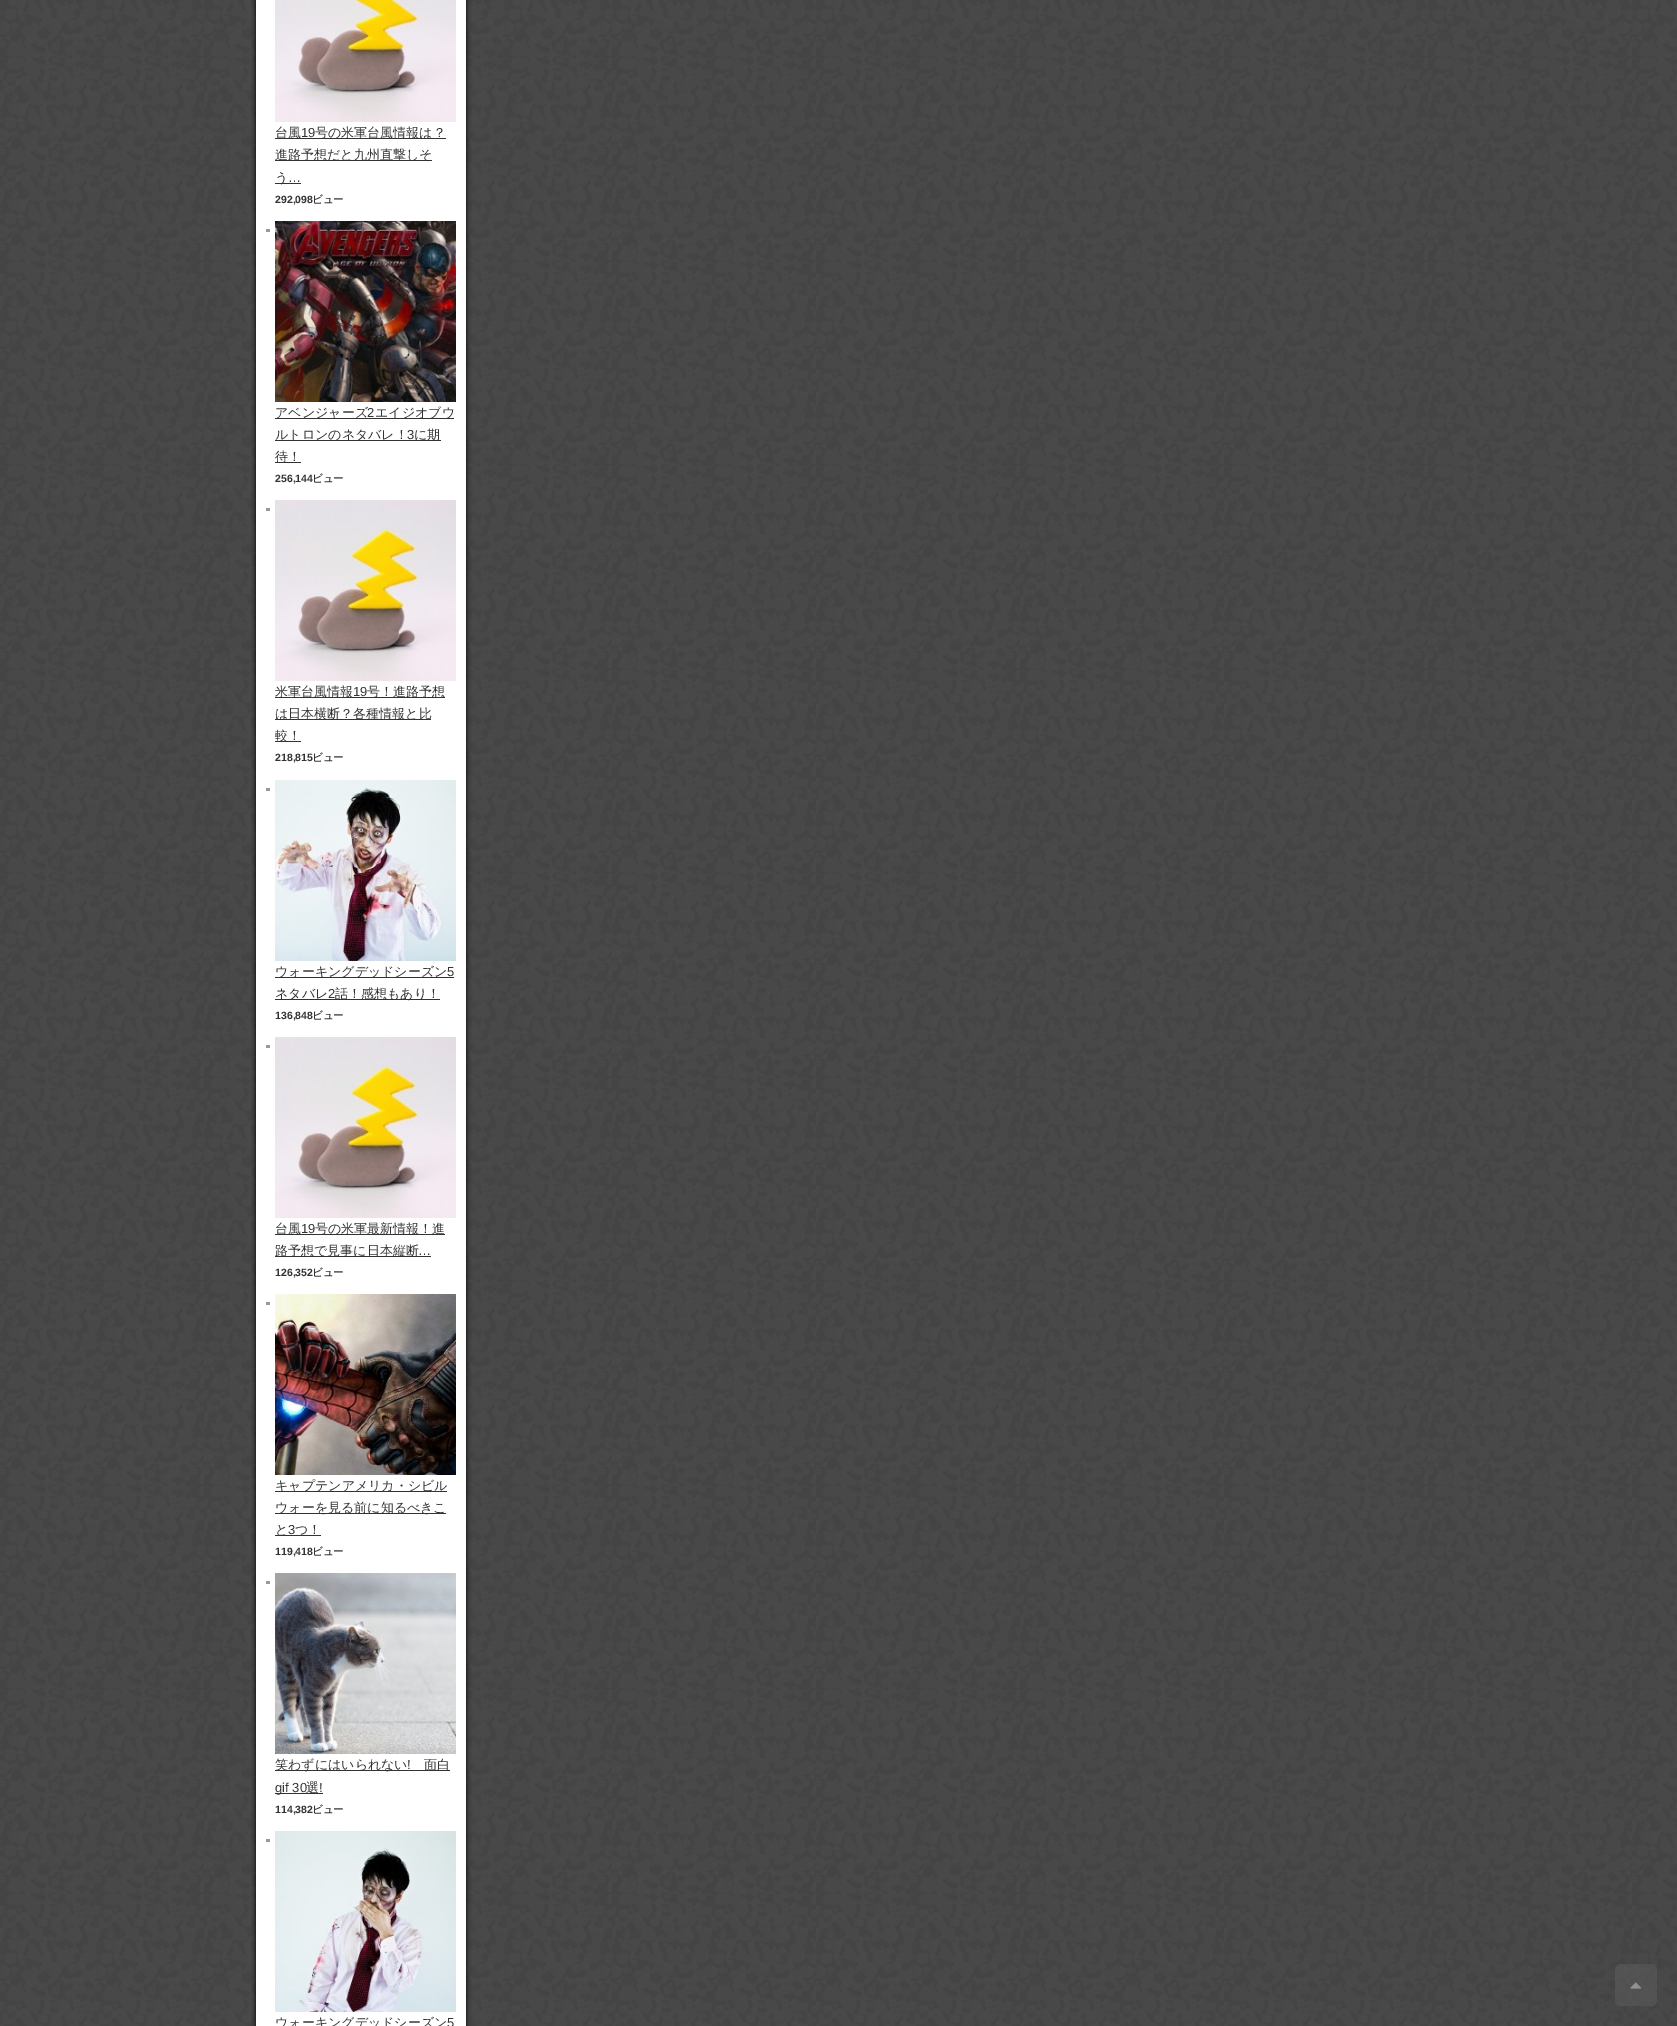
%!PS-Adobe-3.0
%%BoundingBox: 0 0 1677 2026
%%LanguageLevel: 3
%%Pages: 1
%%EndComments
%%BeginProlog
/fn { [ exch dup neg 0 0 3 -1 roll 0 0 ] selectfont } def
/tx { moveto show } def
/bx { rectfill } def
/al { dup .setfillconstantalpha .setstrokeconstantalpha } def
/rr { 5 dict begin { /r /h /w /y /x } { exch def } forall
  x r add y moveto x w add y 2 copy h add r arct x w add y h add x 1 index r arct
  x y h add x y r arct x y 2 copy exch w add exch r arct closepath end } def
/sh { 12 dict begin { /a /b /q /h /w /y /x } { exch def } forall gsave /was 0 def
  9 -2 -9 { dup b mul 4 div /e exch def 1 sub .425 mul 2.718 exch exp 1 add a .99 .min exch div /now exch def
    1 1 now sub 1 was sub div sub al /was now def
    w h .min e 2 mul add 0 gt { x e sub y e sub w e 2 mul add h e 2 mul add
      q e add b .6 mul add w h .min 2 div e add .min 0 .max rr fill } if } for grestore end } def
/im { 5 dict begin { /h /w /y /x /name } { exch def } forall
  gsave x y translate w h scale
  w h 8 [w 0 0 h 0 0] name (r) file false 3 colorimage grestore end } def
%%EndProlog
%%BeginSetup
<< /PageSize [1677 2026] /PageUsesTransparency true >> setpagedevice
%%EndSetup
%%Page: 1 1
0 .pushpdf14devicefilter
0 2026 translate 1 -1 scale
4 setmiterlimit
1 setgray
0 0 1677 2026 bx
(image0.raw) 0 0 1677 2026 im
0 setgray
256 -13 210 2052 5 2.5 1 sh
1 setgray
256 0 210 2026 bx
(image1.raw) 275 0 181 122 im
0.2 setgray
275 138 171 1 bx
/WenQuanYiZenHei-Medium 13 fn
(台風) 275 137 tx
/LiberationSans-Regular 13 fn
(19) 301 137 tx
/WenQuanYiZenHei-Medium 13 fn
(号の米軍台風情報は？) 315 137 tx
275 160 157 1 bx
(進路予想だと九州直撃しそ) 275 159 tx
275 183 26 1 bx
(う) 275 182 tx
/LiberationSans-Regular 13 fn
(…) 288 182 tx
/LiberationSans-Bold 10.5 fn
(292,098) 275 203 tx
/WenQuanYiZenHei-Bold 10.5 fn
(ビュー) 312 203 tx
0.6 setgray
266 229 4 3 bx
(image2.raw) 275 221 181 181 im
0.2 setgray
275 418 179 1 bx
/WenQuanYiZenHei-Medium 13 fn
(アベンジャーズ) 275 417 tx
/LiberationSans-Regular 13 fn
(2) 367 417 tx
/WenQuanYiZenHei-Medium 13 fn
(エイジオブウ) 375 417 tx
275 440 166 1 bx
(ルトロンのネタバレ！) 275 439 tx
/LiberationSans-Regular 13 fn
(3) 407 439 tx
/WenQuanYiZenHei-Medium 13 fn
(に期) 414 439 tx
275 462 26 1 bx
(待！) 275 461 tx
/LiberationSans-Bold 10.5 fn
(256,144) 275 482 tx
/WenQuanYiZenHei-Bold 10.5 fn
(ビュー) 312 482 tx
0.6 setgray
266 508 4 3 bx
(image3.raw) 275 500 181 181 im
0.2 setgray
275 697 170 1 bx
/WenQuanYiZenHei-Medium 13 fn
(米軍台風情報) 275 696 tx
/LiberationSans-Regular 13 fn
(19) 353 696 tx
/WenQuanYiZenHei-Medium 13 fn
(号！進路予想) 367 696 tx
275 719 156 1 bx
(は日本横断？各種情報と比) 275 718 tx
275 741 26 1 bx
(較！) 275 740 tx
/LiberationSans-Bold 10.5 fn
(218,815) 275 761 tx
/WenQuanYiZenHei-Bold 10.5 fn
(ビュー) 312 761 tx
0.6 setgray
266 788 4 3 bx
(image4.raw) 275 780 181 181 im
0.2 setgray
275 977 179 1 bx
/WenQuanYiZenHei-Medium 13 fn
(ウォーキングデッドシーズン) 275 976 tx
/LiberationSans-Regular 13 fn
(5) 447 976 tx
275 999 165 1 bx
/WenQuanYiZenHei-Medium 13 fn
(ネタバレ) 275 998 tx
/LiberationSans-Regular 13 fn
(2) 328 998 tx
/WenQuanYiZenHei-Medium 13 fn
(話！感想もあり！) 335 998 tx
/LiberationSans-Bold 10.5 fn
(136,848) 275 1019 tx
/WenQuanYiZenHei-Bold 10.5 fn
(ビュー) 312 1019 tx
0.6 setgray
266 1045 4 3 bx
(image3.raw) 275 1037 181 181 im
0.2 setgray
275 1234 170 1 bx
/WenQuanYiZenHei-Medium 13 fn
(台風) 275 1233 tx
/LiberationSans-Regular 13 fn
(19) 301 1233 tx
/WenQuanYiZenHei-Medium 13 fn
(号の米軍最新情報！進) 315 1233 tx
275 1256 156 1 bx
(路予想で見事に日本縦断) 275 1255 tx
/LiberationSans-Regular 13 fn
(…) 418 1255 tx
/LiberationSans-Bold 10.5 fn
(126,352) 275 1276 tx
/WenQuanYiZenHei-Bold 10.5 fn
(ビュー) 312 1276 tx
0.6 setgray
266 1302 4 3 bx
(image5.raw) 275 1294 181 181 im
0.2 setgray
275 1491 172 1 bx
/WenQuanYiZenHei-Medium 13 fn
(キャプテンアメリカ・シビル) 275 1490 tx
275 1513 171 1 bx
(ウォーを見る前に知るべきこ) 275 1512 tx
275 1535 46 1 bx
(と) 275 1534 tx
/LiberationSans-Regular 13 fn
(3) 288 1534 tx
/WenQuanYiZenHei-Medium 13 fn
(つ！) 295 1534 tx
/LiberationSans-Bold 10.5 fn
(119,418) 275 1555 tx
/WenQuanYiZenHei-Bold 10.5 fn
(ビュー) 312 1555 tx
0.6 setgray
266 1581 4 3 bx
(image6.raw) 275 1573 181 181 im
0.2 setgray
275 1770 175 1 bx
/WenQuanYiZenHei-Medium 13 fn
(笑わずにはいられない) 275 1769 tx
/LiberationSans-Regular 13 fn
(!) 407 1769 tx
/WenQuanYiZenHei-Medium 13 fn
(面白) 424 1769 tx
275 1793 48 1 bx
/LiberationSans-Regular 13 fn
(gif 30) 275 1792 tx
/WenQuanYiZenHei-Medium 13 fn
(選) 306 1792 tx
/LiberationSans-Regular 13 fn
(!) 319 1792 tx
/LiberationSans-Bold 10.5 fn
(114,382) 275 1813 tx
/WenQuanYiZenHei-Bold 10.5 fn
(ビュー) 312 1813 tx
0.6 setgray
266 1839 4 3 bx
(image7.raw) 275 1831 181 181 im
/WenQuanYiZenHei-Medium 13 fn
0.2 setgray
(ウォーキングデッドシーズン) 275 2027 tx
/LiberationSans-Regular 13 fn
(5) 447 2027 tx
(image8.raw) 1615 1964 42 42 im
.poppdf14devicefilter showpage
%%EOF
